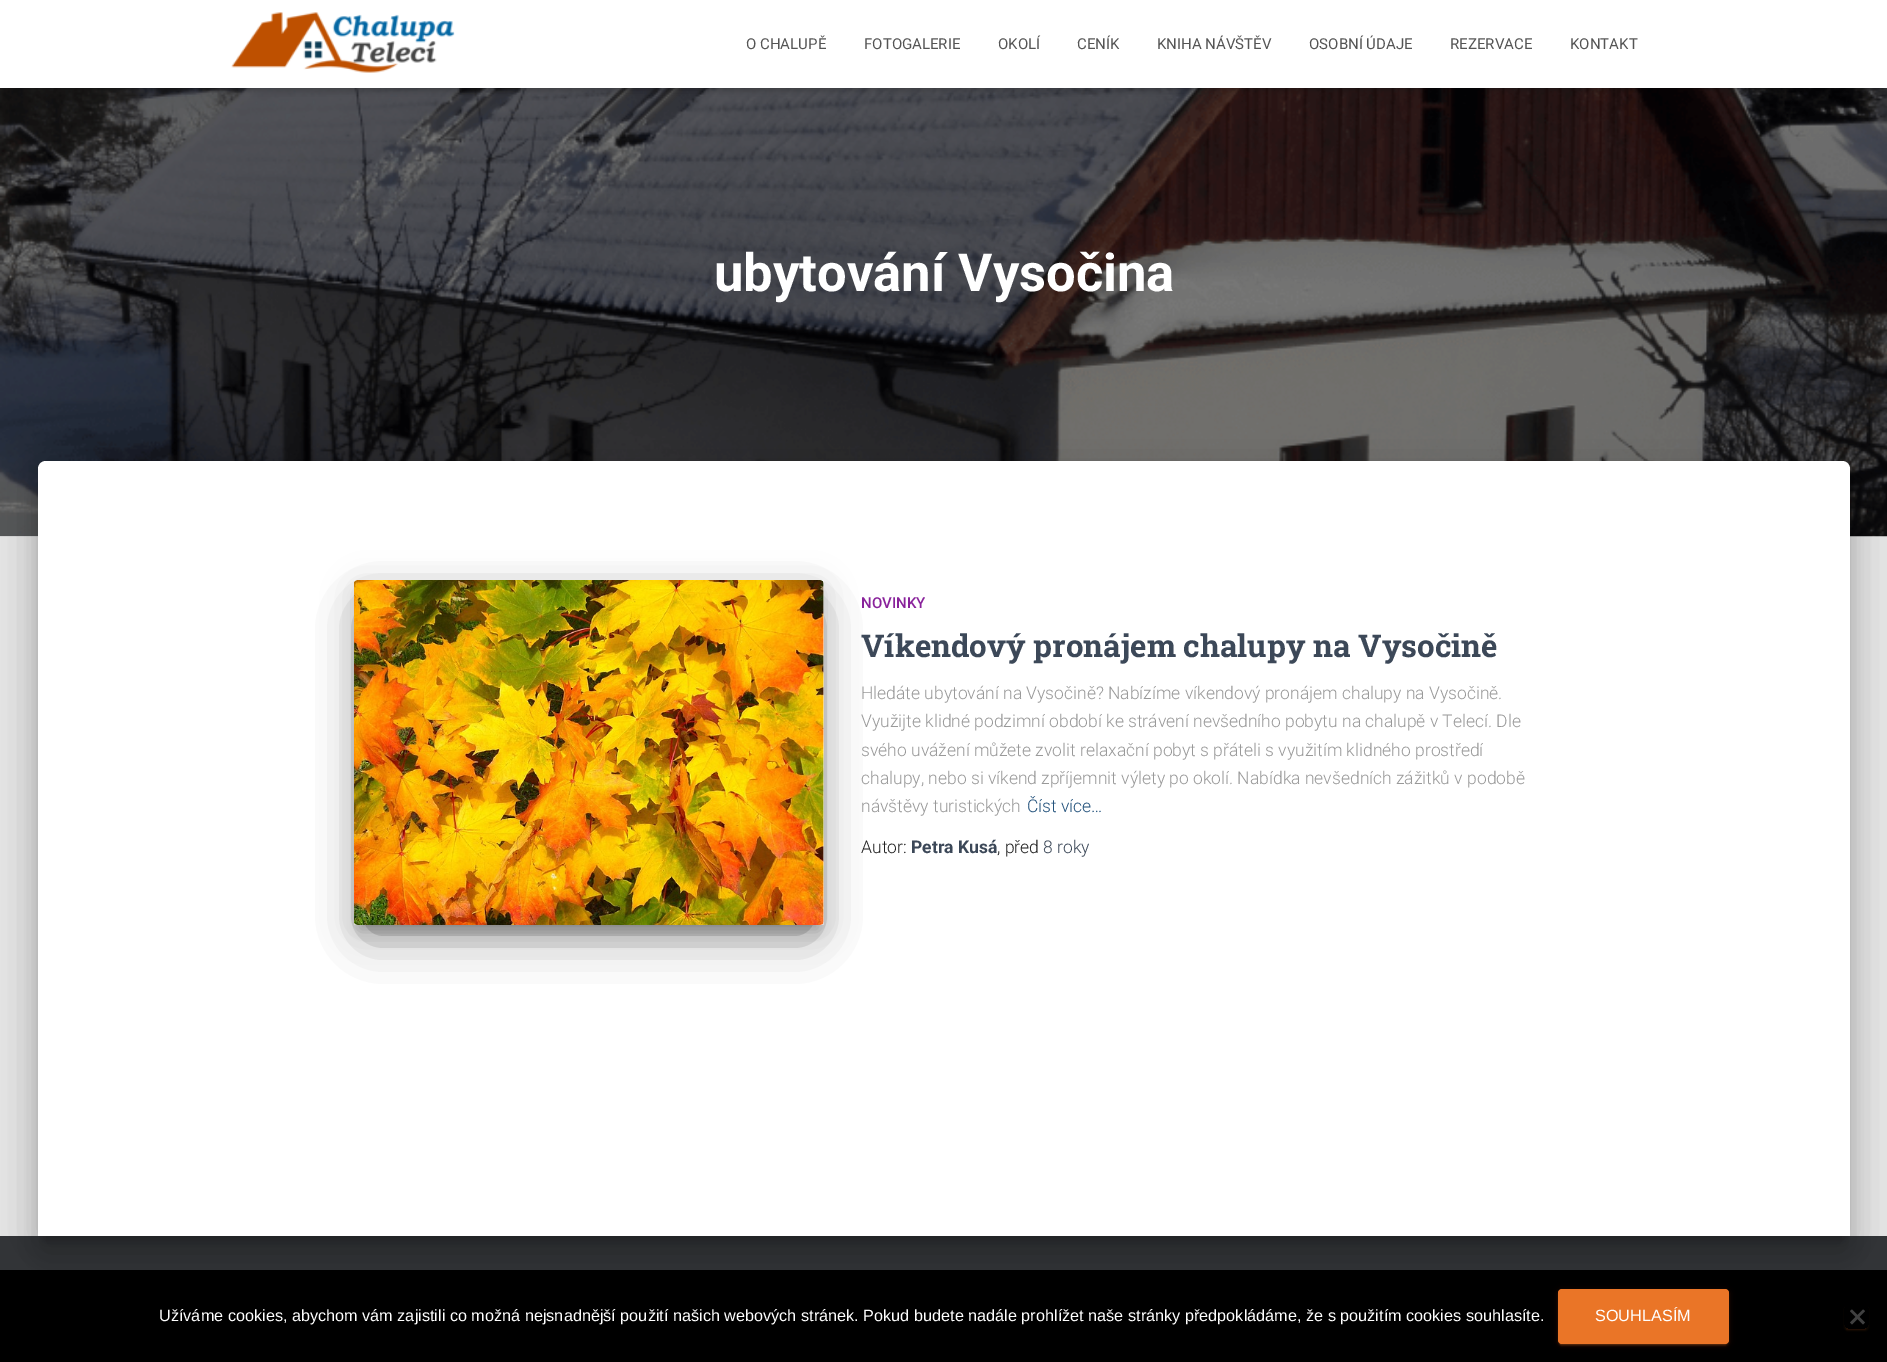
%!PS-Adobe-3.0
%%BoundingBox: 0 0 1887 1362
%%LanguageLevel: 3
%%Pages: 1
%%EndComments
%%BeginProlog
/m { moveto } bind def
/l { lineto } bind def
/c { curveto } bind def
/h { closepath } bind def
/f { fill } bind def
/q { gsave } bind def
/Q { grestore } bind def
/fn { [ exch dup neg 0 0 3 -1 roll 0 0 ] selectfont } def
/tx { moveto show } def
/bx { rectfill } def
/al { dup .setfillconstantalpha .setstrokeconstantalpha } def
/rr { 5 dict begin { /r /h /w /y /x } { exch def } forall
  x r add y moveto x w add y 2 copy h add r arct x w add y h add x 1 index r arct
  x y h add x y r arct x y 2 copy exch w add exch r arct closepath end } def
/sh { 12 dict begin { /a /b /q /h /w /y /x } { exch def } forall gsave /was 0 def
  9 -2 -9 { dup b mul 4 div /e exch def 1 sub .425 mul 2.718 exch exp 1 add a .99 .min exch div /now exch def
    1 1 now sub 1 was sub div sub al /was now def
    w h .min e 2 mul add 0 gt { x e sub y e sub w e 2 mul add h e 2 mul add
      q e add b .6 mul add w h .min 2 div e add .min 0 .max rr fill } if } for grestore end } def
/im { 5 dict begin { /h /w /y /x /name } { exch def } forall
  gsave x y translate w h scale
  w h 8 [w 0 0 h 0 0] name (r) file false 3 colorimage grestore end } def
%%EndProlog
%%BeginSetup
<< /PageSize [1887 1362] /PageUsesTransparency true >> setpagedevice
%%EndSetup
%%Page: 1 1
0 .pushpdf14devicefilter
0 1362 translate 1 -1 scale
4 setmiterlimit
0.898 setgray
0 0 1887 1362 bx
(image1.raw) 0 88 1887 449 im
0 setgray
3 8 1882 82 0 3 0.1 sh
0 1 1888 88 0 6 0.12 sh
8 9 1872 72 0 6 0.42 sh
1 setgray
0 0 1887 88 bx
(image0.raw) 231 12 224 61 im
/Roboto-Regular 15 fn
0.333 setgray
(O CHALUPĚ) 746 49 tx
(FOTOGALERIE) 864 49 tx
(OKOLÍ) 998 49 tx
(CENÍK) 1077 49 tx
(KNIHA NÁVŠTĚV) 1157 49 tx
(OSOBNÍ ÚDAJE) 1309 49 tx
(REZERVACE) 1450 49 tx
(KONTAKT) 1570 49 tx
/Roboto-Bold 52.5 fn
1 setgray
(ubytování Vysočina) 714 291 tx
0.196 0.204 0.216 setrgbcolor
0 1236 1887 34 bx
0 setgray
44 478 1800 762 1 6 0.2 sh
31 463 1825 787 14 19 0.12 sh
35 479 1818 780 10 15 0.14 sh
1 setgray
46 461 m 1842 461 l 1846.5 461 1850 464.5 1850 469 c 1850 1236 l 38 1236 l 38 469 l 38 464.5 41.5 461 46 461 c h f
0 setgray
360 596 458 333 0 6 0.2 sh
354 585 470 345 4 15.5 0.12 sh
369 615 440 315 0 24 0.56 sh
(image2.raw) 354 580 470 345 im
/Roboto-Medium 15 fn
0.537 0.133 0.608 setrgbcolor
(NOVINKY) 861 608 tx
/RobotoSlab-Bold 31.25 fn
0.235 0.282 0.345 setrgbcolor
(Víkendový pronájem chalupy na Vysočině) 861 657 tx
/Roboto-Light 17.5 fn
0.6 setgray
(Hledáte ubytování na Vysočině? Nabízíme víkendový pronájem chalupy na Vysočině.) 861 699 tx
(Využijte klidné podzimní období ke strávení nevšedního pobytu na chalupě v Telecí. Dle) 861 727 tx
(svého uvážení můžete zvolit relaxační pobyt s přáteli s využitím klidného prostředí) 861 756 tx
(chalupy, nebo si víkend zpříjemnit výlety po okolí. Nabídka nevšedních zážitků v podobě) 861 784 tx
(návštěvy turistických) 861 812 tx
0.137 0.322 0.486 setrgbcolor
(Číst více…) 1027 812 tx
0.129 setgray
(Autor:) 861 853 tx
/Roboto-Bold 17.5 fn
0.235 0.282 0.345 setrgbcolor
(Petra Kusá) 911 853 tx
/Roboto-Light 17.5 fn
0.129 setgray
(, před) 997 853 tx
0.235 0.282 0.345 setrgbcolor
(8 roky) 1043 853 tx
0 setgray
0 1270 1887 92 bx
/LiberationSans-Regular 16.25 fn
1 setgray
(Užíváme cookies, abychom vám zajistili co možná nejsnadnější použití našich webových stránek. Pokud budete nadále prohlížet naše stránky předpokládáme, že s použitím cookies souhlasíte.) 159 1321 tx
0.918 0.459 0.153 setrgbcolor
1558 1290 171 55 4 3 0.12 sh
1560 1295 166 50 1 0.5 0.2 sh
1558 1291 171 55 4 1 0.14 sh
1558 1289 171 55 4 rr f
1 setgray
(SOUHLASÍM) 1595 1321 tx
q
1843 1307 m 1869 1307 l 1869 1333 l 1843 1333 l h 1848 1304 m 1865 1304 l 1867 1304 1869 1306 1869 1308 c 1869 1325 l 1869 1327 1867 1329 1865 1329 c 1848 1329 l 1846 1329 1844 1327 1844 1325 c 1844 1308 l 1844 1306 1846 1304 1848 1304 c h eoclip newpath
0.459 0.231 0.078 setrgbcolor
1846 1310 20 20 1 0.5 0.2 sh
Q
q
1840 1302 m 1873 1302 l 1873 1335 l 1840 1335 l h 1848 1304 m 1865 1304 l 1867 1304 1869 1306 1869 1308 c 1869 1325 l 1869 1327 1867 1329 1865 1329 c 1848 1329 l 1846 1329 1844 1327 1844 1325 c 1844 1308 l 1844 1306 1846 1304 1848 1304 c h eoclip newpath
0.459 0.231 0.078 setrgbcolor
1844 1306 25 25 4 1 0.14 sh
Q
0.251 setgray
1863 1309.5 m 1865 1311 l 1852 1324.5 l 1850 1322.5 l h f
1850 1311 m 1852 1309.5 l 1865 1322.5 l 1863 1324.5 l h f
.poppdf14devicefilter showpage
%%EOF
